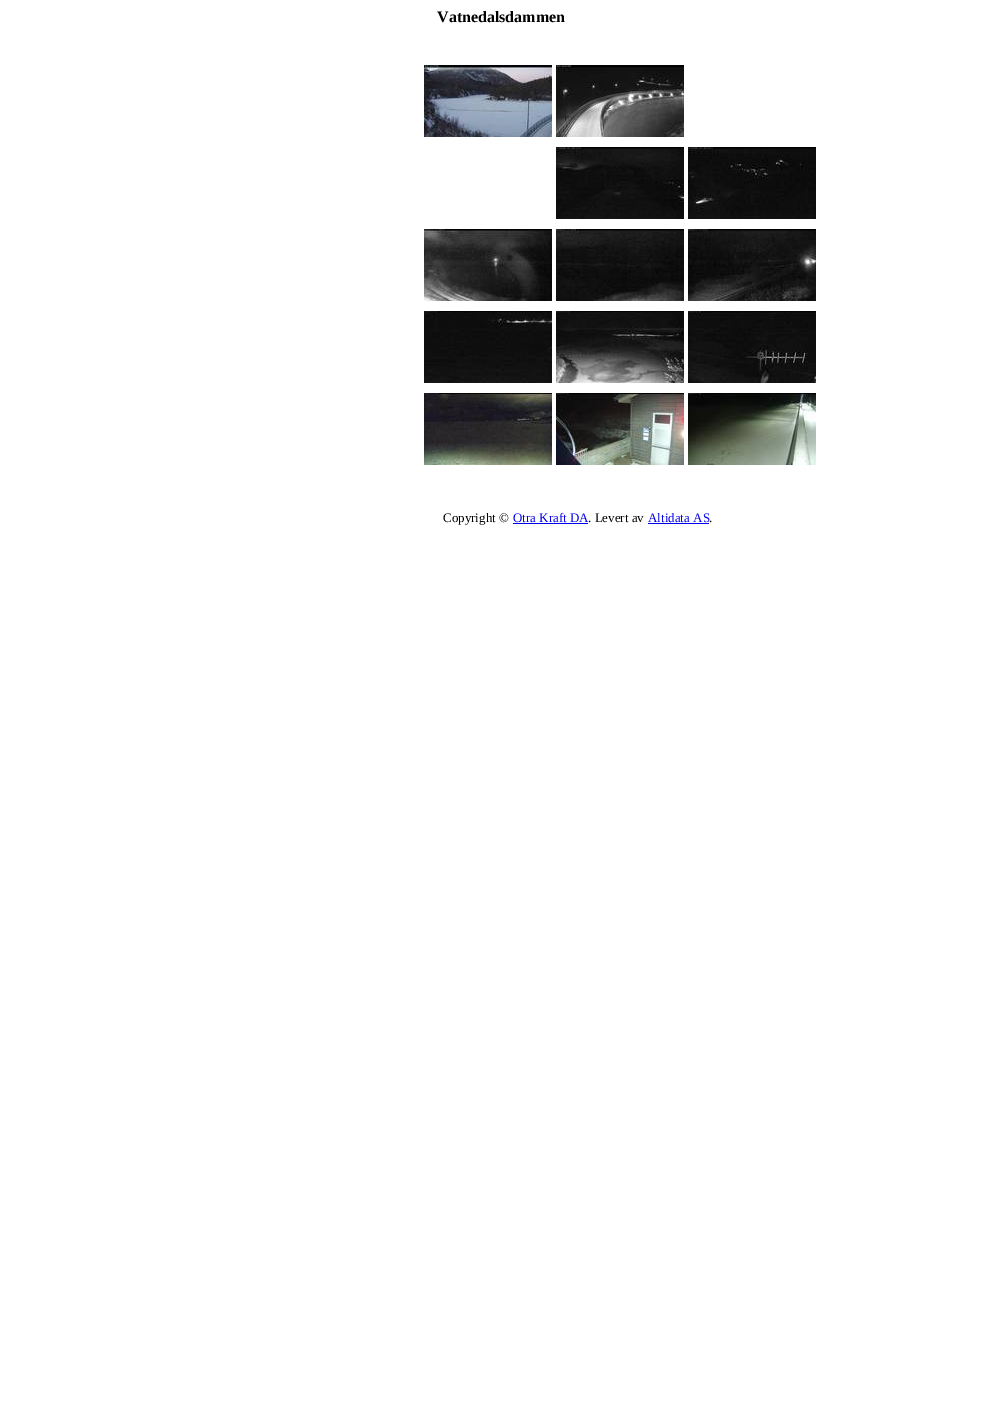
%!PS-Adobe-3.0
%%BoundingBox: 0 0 1002 1406
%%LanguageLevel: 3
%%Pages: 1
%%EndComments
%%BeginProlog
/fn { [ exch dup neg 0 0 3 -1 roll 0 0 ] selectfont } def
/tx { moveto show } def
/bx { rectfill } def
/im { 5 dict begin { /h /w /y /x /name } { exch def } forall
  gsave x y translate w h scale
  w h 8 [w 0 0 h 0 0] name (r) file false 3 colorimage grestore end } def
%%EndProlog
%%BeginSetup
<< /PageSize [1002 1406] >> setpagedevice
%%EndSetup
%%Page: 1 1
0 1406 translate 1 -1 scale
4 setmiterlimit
1 setgray
0 0 1002 1406 bx
/LiberationSerif-Bold 16 fn
0 setgray
(Vatnedalsdammen) 437 22 tx
(image0.raw) 424 65 128 72 im
(image1.raw) 556 65 128 72 im
(image2.raw) 556 147 128 72 im
(image3.raw) 688 147 128 72 im
(image4.raw) 424 229 128 72 im
(image5.raw) 556 229 128 72 im
(image6.raw) 688 229 128 72 im
(image7.raw) 424 311 128 72 im
(image8.raw) 556 311 128 72 im
(image9.raw) 688 311 128 72 im
(image10.raw) 424 393 128 72 im
(image11.raw) 556 393 128 72 im
(image12.raw) 688 393 128 72 im
/LiberationSerif-Regular 13 fn
(Copyright ©) 443 522 tx
0 0 0.933 setrgbcolor
(Otra Kraft DA) 513 522 tx
513 523 75 1 bx
0 setgray
(. Levert av) 588 522 tx
0 0 0.933 setrgbcolor
(Altidata AS) 648 522 tx
0 setgray
(.) 709 522 tx
0 0 0.933 setrgbcolor
648 523 61 1 bx
showpage
%%EOF
